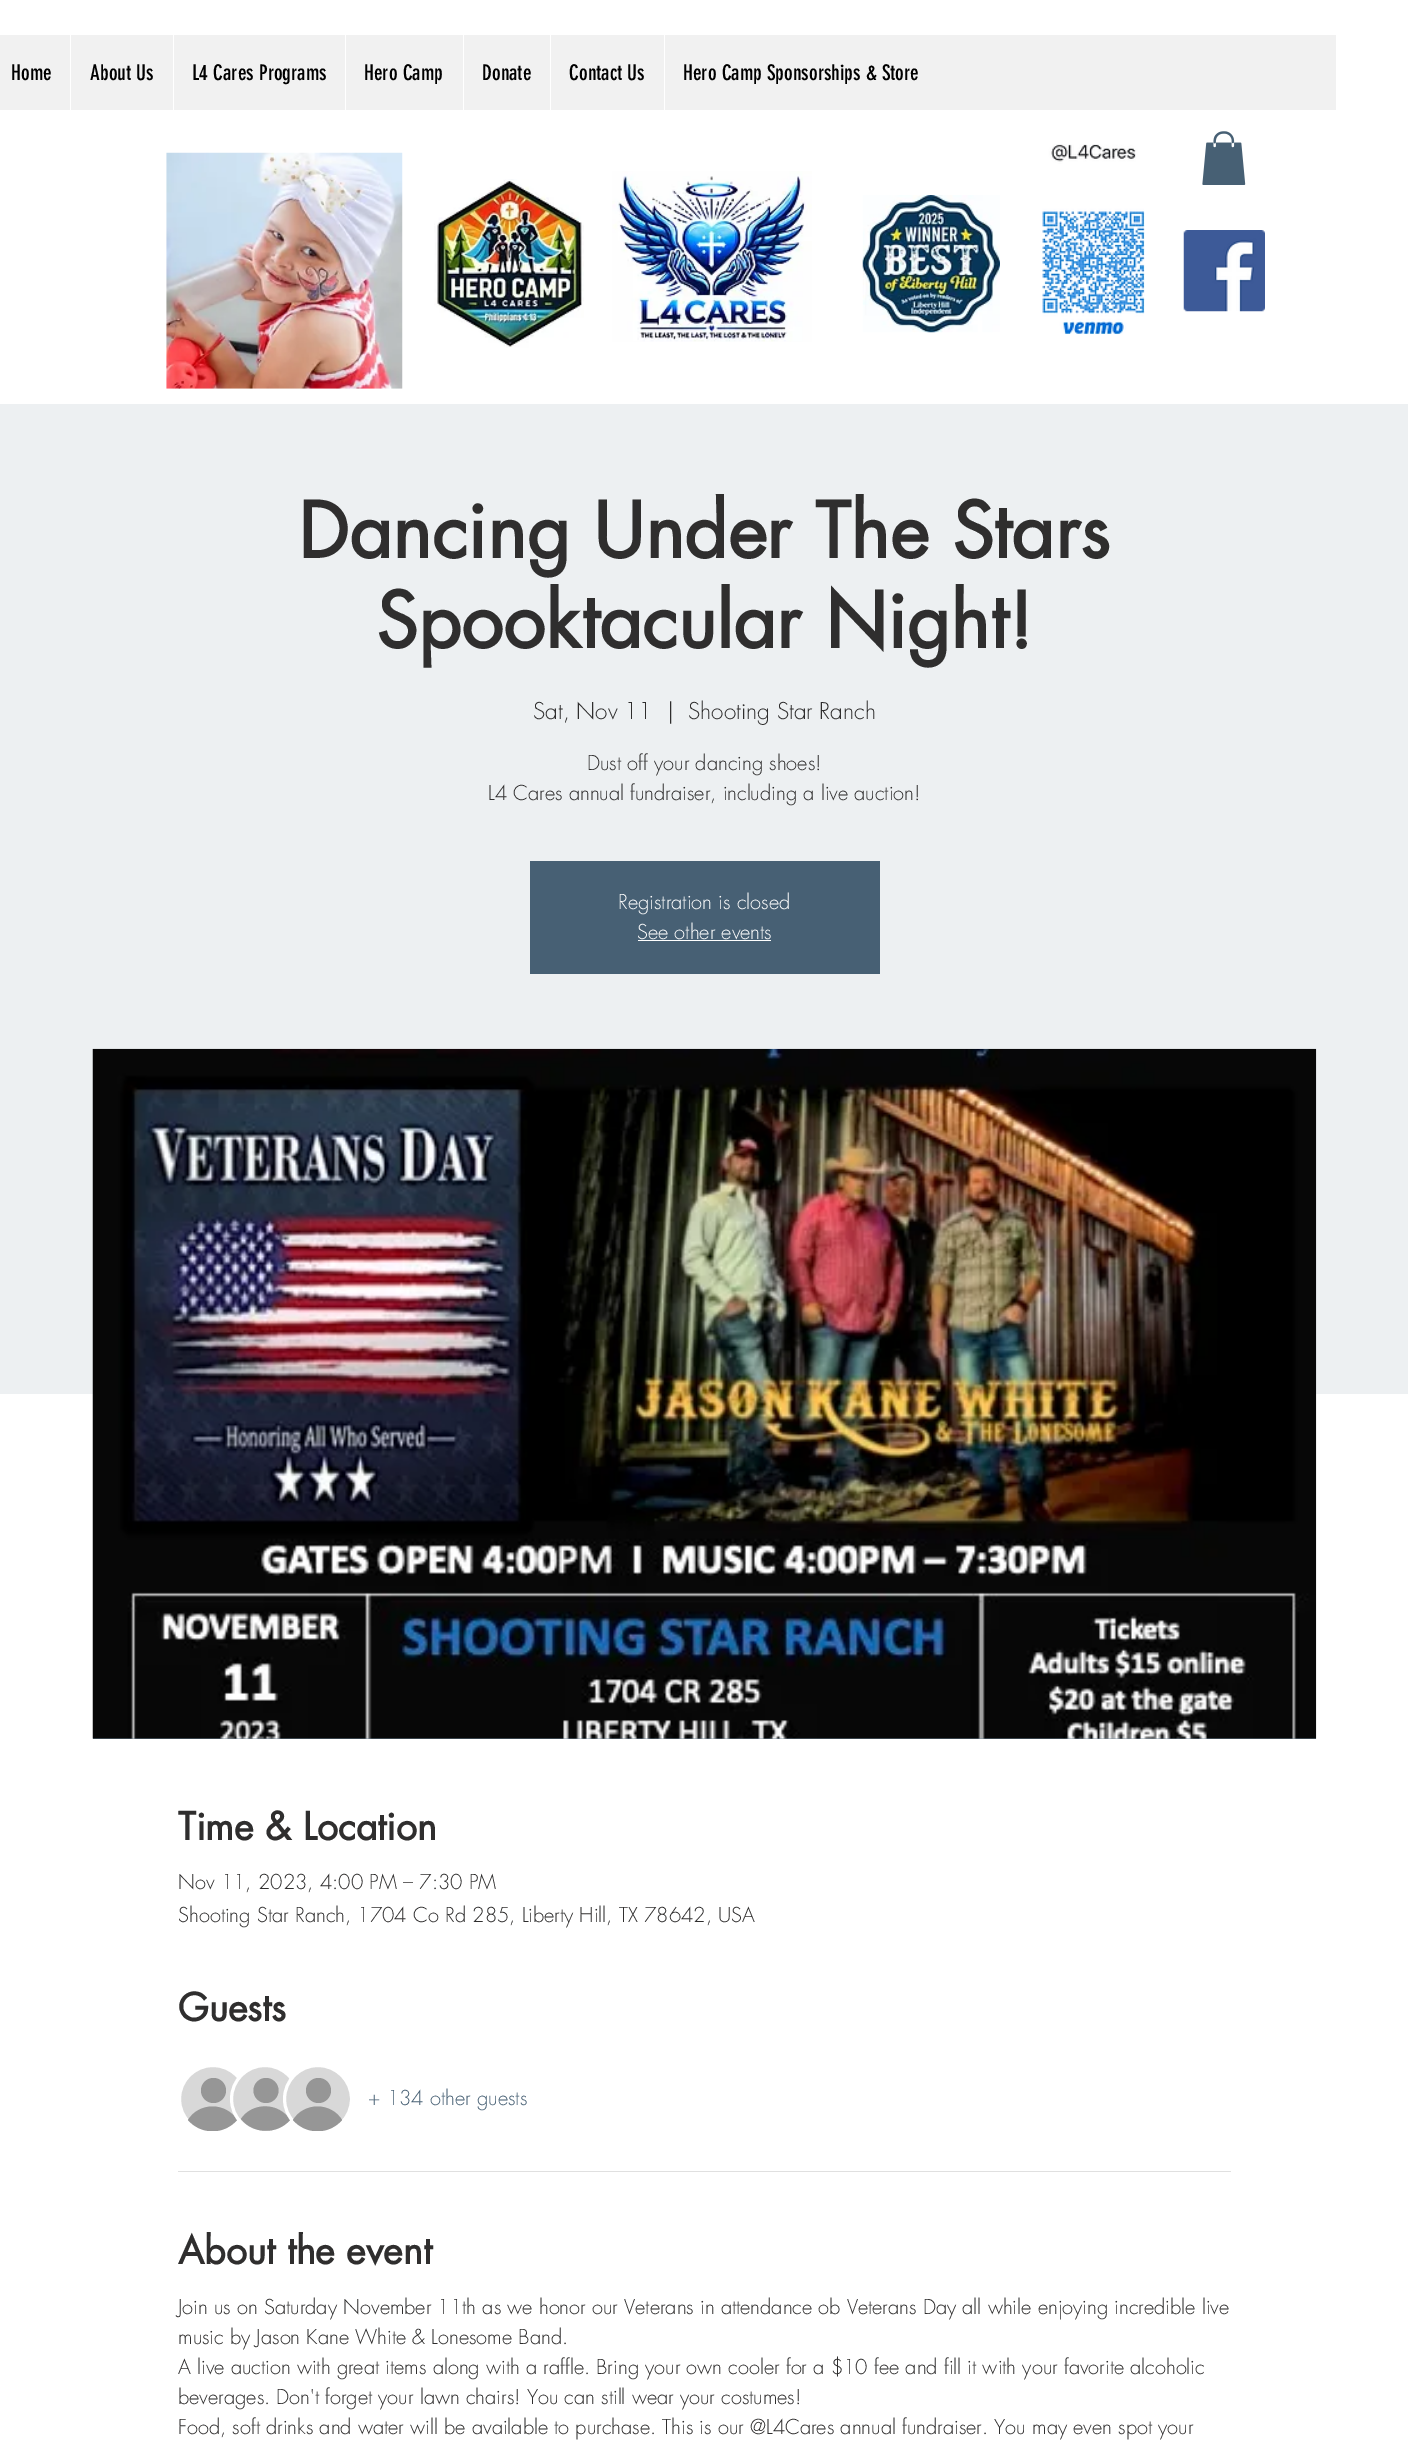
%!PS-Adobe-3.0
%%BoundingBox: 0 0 1408 2453
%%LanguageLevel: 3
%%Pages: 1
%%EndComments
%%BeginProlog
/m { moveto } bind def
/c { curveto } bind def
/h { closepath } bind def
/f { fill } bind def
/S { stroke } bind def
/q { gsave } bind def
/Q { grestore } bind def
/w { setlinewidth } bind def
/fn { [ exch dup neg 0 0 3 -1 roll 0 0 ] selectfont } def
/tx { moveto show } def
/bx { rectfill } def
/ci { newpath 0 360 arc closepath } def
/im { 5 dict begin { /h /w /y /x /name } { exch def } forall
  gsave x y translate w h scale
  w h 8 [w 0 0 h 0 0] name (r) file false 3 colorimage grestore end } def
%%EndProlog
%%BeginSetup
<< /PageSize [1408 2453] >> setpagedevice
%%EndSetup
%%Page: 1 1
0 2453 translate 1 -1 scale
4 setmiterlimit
1 setgray
0 0 1408 2453 bx
0.945 setgray
0 35 1336 75 bx
/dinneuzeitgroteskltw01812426-Regular 21.25 fn
0 setgray
(Home) 11 80 tx
1 setgray
70 35 1 75 bx
0 setgray
(About Us) 90 80 tx
1 setgray
173 35 1 75 bx
0 setgray
(L4 Cares Programs) 192 80 tx
1 setgray
345 35 1 75 bx
0 setgray
(Hero Camp) 364 80 tx
1 setgray
463 35 1 75 bx
0 setgray
(Donate) 482 80 tx
1 setgray
550 35 1 75 bx
0 setgray
(Contact Us) 569 80 tx
1 setgray
664 35 1 75 bx
0 setgray
(Hero Camp Sponsorships & Store) 683 80 tx
(image0.raw) 166 152 237 237 im
(image1.raw) 434 179 150 169 im
(image2.raw) 612 171 200 171 im
(image3.raw) 862 195 138 138 im
(image4.raw) 1042 144 103 191 im
(image5.raw) 1202 131 44 54 im
(image6.raw) 1183 230 82 82 im
0.929 0.941 0.949 setrgbcolor
0 404 1408 990 bx
/futura-Bold 75 fn
0.184 0.18 0.18 setrgbcolor
(Dancing Under The Stars) 298 558 tx
(Spooktacular Night!) 376 648 tx
/futura-Light 22.5 fn
(Sat, Nov 11) 533 719 tx
(|) 667 719 tx
(Shooting Star Ranch) 688 719 tx
/futura-Light 20 fn
(Dust off your dancing shoes!) 587 770 tx
(L4 Cares annual fundraiser, including a live auction!) 488 800 tx
0.278 0.376 0.455 setrgbcolor
530 861 350 113 bx
1 setgray
(Registration is closed) 618 909 tx
(See other events) 637 939 tx
638 940 133 1 bx
0.471 0.565 0.639 setrgbcolor
93 1738 1223 1 bx
(image7.raw) 92 1048 1225 691 im
/futura-Bold 37.5 fn
0.184 0.18 0.18 setrgbcolor
(Time & Location) 178 1840 tx
/futura-Light 20 fn
(Nov 11, 2023, 4:00 PM – 7:30 PM) 178 1889 tx
(Shooting Star Ranch, 1704 Co Rd 285, Liberty Hill, TX 78642, USA) 178 1922 tx
/futura-Bold 37.5 fn
(Guests) 178 2021 tx
0.847 setgray
213 2099 33.5 ci q f Q
1 setgray
3 w
S
0.588 setgray
213.5 2090.5 12.5 ci f
q
180 2066 65 65 rectclip
237 2120 m 224 2135 201 2135 188 2120 c 199 2102 226 2102 237 2120 c h f
Q
0.847 setgray
265 2099 33.5 ci q f Q
1 setgray
S
0.588 setgray
266 2090.5 12.5 ci f
290 2120 m 277 2135 253 2134 241 2119 c 252 2102 279 2102 290 2120 c h f
0.847 setgray
318 2099 33.5 ci q f Q
1 setgray
S
0.588 setgray
318.5 2090.5 12.5 ci f
q
285 2066 65 65 rectclip
342 2120 m 329 2135 306 2135 293 2120 c 304 2102 331 2102 342 2120 c h f
Q
/futura-Light 20 fn
0.278 0.376 0.455 setrgbcolor
(+ 134 other guests) 368 2105 tx
0.878 setgray
178 2171 1053 1 bx
/futura-Bold 37.5 fn
0.184 0.18 0.18 setrgbcolor
(About the event) 178 2264 tx
/futura-Light 20 fn
(Join us on Saturday November 11th as we honor our Veterans in attendance ob Veterans Day all while enjoying incredible live) 178 2314 tx
(music by Jason Kane White & Lonesome Band.) 178 2344 tx
(A live auction with great items along with a raffle. Bring your own cooler for a $10 fee and fill it with your favorite alcoholic) 178 2374 tx
(beverages. Don't forget your lawn chairs! You can still wear your costumes!) 178 2404 tx
(Food, soft drinks and water will be available to purchase. This is our @L4Cares annual fundraiser. You may even spot your) 178 2434 tx
showpage
%%EOF
